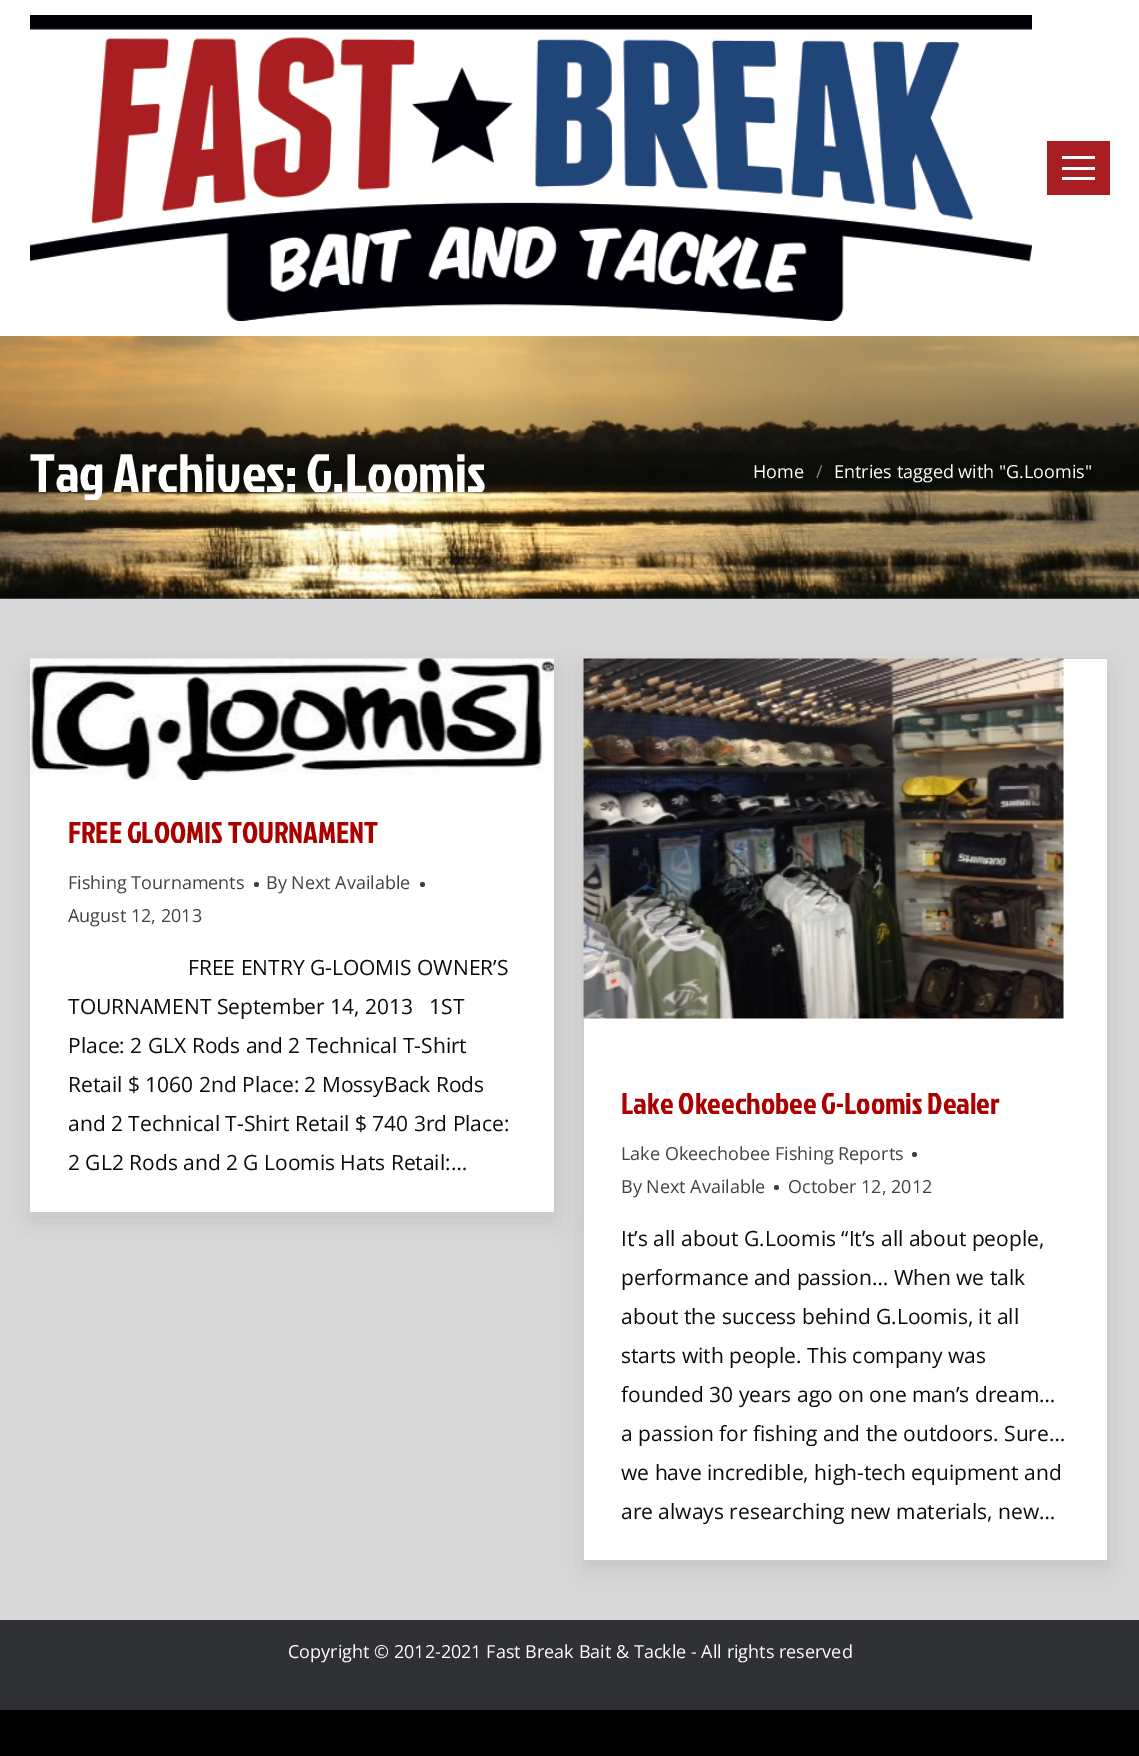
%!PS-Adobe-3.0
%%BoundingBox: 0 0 1139 1756
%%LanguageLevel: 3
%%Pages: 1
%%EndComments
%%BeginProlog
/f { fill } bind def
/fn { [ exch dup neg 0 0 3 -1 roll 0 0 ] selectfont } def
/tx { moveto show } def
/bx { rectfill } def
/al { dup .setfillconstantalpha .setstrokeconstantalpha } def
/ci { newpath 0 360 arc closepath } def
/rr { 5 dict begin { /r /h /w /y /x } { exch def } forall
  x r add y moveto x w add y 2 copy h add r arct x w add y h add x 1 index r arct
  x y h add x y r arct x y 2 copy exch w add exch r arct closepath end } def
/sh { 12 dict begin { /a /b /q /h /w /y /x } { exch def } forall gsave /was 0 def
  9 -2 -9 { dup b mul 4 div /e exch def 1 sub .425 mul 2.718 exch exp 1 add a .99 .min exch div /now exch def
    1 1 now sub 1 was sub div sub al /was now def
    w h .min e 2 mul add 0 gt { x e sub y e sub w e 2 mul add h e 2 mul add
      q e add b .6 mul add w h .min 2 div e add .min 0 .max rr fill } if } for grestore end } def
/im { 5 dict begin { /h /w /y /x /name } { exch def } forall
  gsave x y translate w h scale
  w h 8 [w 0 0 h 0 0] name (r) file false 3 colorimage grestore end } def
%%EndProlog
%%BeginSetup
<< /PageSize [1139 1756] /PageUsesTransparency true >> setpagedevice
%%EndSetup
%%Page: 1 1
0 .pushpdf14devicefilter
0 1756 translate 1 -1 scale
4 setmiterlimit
0 setgray
0 0 1139 1756 bx
0.851 setgray
0 599 1139 1021 bx
1 setgray
0 0 1139 336 bx
(image0.raw) 30 15 1002 306 im
0.663 0.118 0.133 setrgbcolor
1047 141 63 54 bx
1 setgray
1062 156 33 3 bx
1062 167 33 3 bx
1062 177 33 3 bx
0.447 0.467 0.49 setrgbcolor
0 598 1139 1 bx
(image1.raw) 0 336 1139 263 im
/JockeyOne-Regular 54 fn
1 setgray
(Tag Archives: G.Loomis) 30 492 tx
0.1 al
0.059 0.071 0.075 setrgbcolor
735 452 375 40 15 rr f
/OpenSans-Regular 18 fn
1 al
1 setgray
(Home) 753 478 tx
0.525 0.525 0.518 setrgbcolor
(/) 816 478 tx
1 setgray
(Entries tagged with "G.Loomis") 834 478 tx
0 setgray
30 668 524 553 0 13.5 0.1 sh
1 setgray
30 659 524 553 bx
(image2.raw) 30 658 524 122 im
/JockeyOne-Regular 30 fn
0.663 0.004 0 setrgbcolor
(FREE GLOOMIS TOURNAMENT) 68 843 tx
/OpenSans-Regular 18 fn
0.259 setgray
(Fishing Tournaments) 68 889 tx
256.5 884.5 2.5 ci f
(By Next Available) 266 889 tx
422.5 884.5 2.5 ci f
(August 12, 2013) 68 922 tx
/OpenSans-Regular 21 fn
0.047 setgray
(FREE ENTRY G-LOOMIS OWNER’S) 188 975 tx
(TOURNAMENT September 14, 2013   1ST) 68 1014 tx
(Place: 2 GLX Rods and 2 Technical T-Shirt) 68 1053 tx
(Retail $ 1060 2nd Place: 2 MossyBack Rods) 68 1092 tx
(and 2 Technical T-Shirt Retail $ 740 3rd Place:) 68 1131 tx
(2 GL2 Rods and 2 G Loomis Hats Retail:…) 68 1170 tx
0 setgray
584 668 523 901 0 13.5 0.1 sh
1 setgray
584 659 523 901 bx
(image3.raw) 583 658 481 361 im
/JockeyOne-Regular 30 fn
0.663 0.004 0 setrgbcolor
(Lake Okeechobee G-Loomis Dealer) 621 1114 tx
/OpenSans-Regular 18 fn
0.259 setgray
(Lake Okeechobee Fishing Reports) 621 1160 tx
914.5 1154.5 2.5 ci f
(By Next Available) 621 1193 tx
776.5 1187.5 2.5 ci f
(October 12, 2012) 788 1193 tx
/OpenSans-Regular 21 fn
0.047 setgray
(It’s all about G.Loomis “It’s all about people,) 621 1246 tx
(performance and passion… When we talk) 621 1285 tx
(about the success behind G.Loomis, it all) 621 1324 tx
(starts with people. This company was) 621 1363 tx
(founded 30 years ago on one man’s dream…) 621 1402 tx
(a passion for fishing and the outdoors. Sure…) 621 1441 tx
(we have incredible, high-tech equipment and) 621 1480 tx
(are always researching new materials, new…) 621 1519 tx
0.188 0.192 0.204 setrgbcolor
0 1620 1139 90 bx
/OpenSans-Regular 18 fn
1 setgray
(Copyright © 2012-2021 Fast Break Bait & Tackle - All rights reserved) 288 1658 tx
.poppdf14devicefilter showpage
%%EOF
